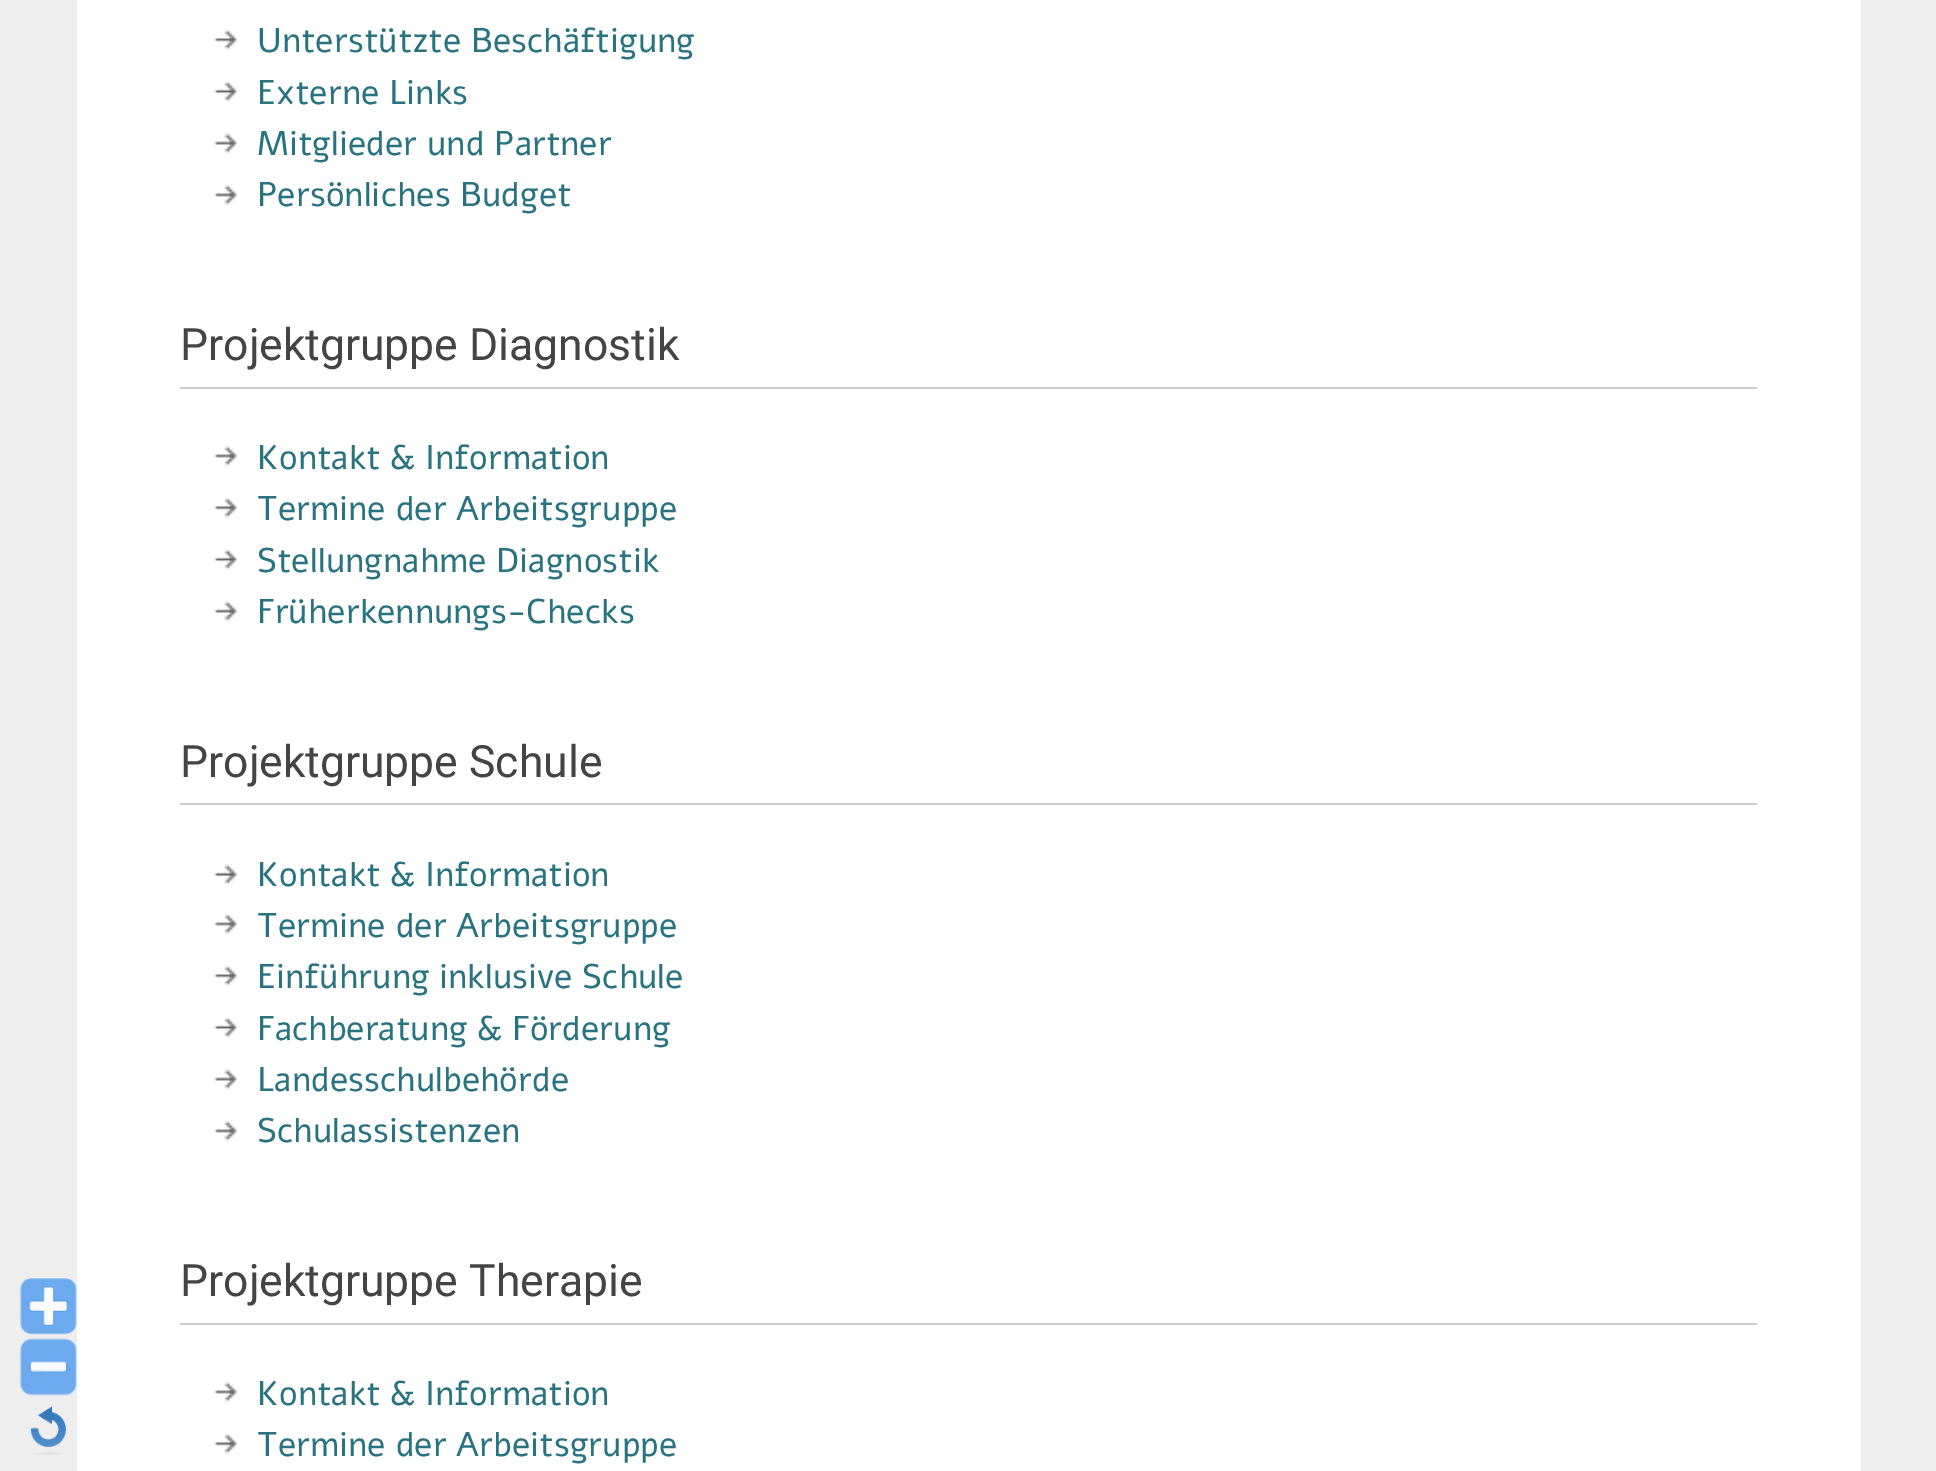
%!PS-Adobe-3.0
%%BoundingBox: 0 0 1936 1471
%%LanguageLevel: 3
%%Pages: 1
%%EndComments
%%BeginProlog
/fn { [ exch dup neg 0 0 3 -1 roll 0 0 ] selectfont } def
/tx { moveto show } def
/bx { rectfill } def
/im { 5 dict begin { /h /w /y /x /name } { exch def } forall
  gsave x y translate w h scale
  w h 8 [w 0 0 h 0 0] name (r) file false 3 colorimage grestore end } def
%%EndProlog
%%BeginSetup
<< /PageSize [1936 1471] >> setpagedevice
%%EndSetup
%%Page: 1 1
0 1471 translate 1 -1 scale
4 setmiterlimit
0.933 setgray
0 0 1936 1471 bx
(image0.raw) 20 1278 57 57 im
(image1.raw) 20 1338 57 58 im
(image2.raw) 30 1406 36 49 im
1 setgray
77 0 1784 1471 bx
(image3.raw) 213 29 24 21 im
/Alef-Regular 34.25 fn
0.153 0.451 0.498 setrgbcolor
(Unterstützte Beschäftigung) 257 52 tx
(image4.raw) 213 81 24 21 im
(Externe Links) 257 104 tx
(image5.raw) 213 132 24 22 im
(Mitglieder und Partner) 257 155 tx
(image6.raw) 214 184 23 22 im
(Persönliches Budget) 257 206 tx
0.8 setgray
180 387 1577 2 bx
/Roboto-Regular 44.5 fn
0.267 setgray
(Projektgruppe Diagnostik) 180 360 tx
(image6.raw) 214 445 23 22 im
/Alef-Regular 34.25 fn
0.153 0.451 0.498 setrgbcolor
(Kontakt & Information) 257 469 tx
(image3.raw) 213 497 24 21 im
(Termine der Arbeitsgruppe) 257 520 tx
(image4.raw) 213 549 24 21 im
(Stellungnahme Diagnostik) 257 572 tx
(image5.raw) 213 600 24 22 im
(Früherkennungs-Checks) 257 623 tx
0.8 setgray
180 803 1577 2 bx
/Roboto-Regular 44.5 fn
0.267 setgray
(Projektgruppe Schule) 180 777 tx
(image7.raw) 213 864 24 21 im
/Alef-Regular 34.25 fn
0.153 0.451 0.498 setrgbcolor
(Kontakt & Information) 257 886 tx
(image6.raw) 214 913 23 22 im
(Termine der Arbeitsgruppe) 257 937 tx
(image3.raw) 213 965 24 21 im
(Einführung inklusive Schule) 257 988 tx
(image4.raw) 213 1017 24 21 im
(Fachberatung & Förderung) 257 1040 tx
(image5.raw) 213 1068 24 22 im
(Landesschulbehörde) 257 1091 tx
(image8.raw) 214 1120 23 22 im
(Schulassistenzen) 257 1142 tx
0.8 setgray
180 1323 1577 2 bx
/Roboto-Regular 44.5 fn
0.267 setgray
(Projektgruppe Therapie) 180 1296 tx
(image6.raw) 214 1381 23 22 im
/Alef-Regular 34.25 fn
0.153 0.451 0.498 setrgbcolor
(Kontakt & Information) 257 1405 tx
(image3.raw) 213 1433 24 21 im
(Termine der Arbeitsgruppe) 257 1456 tx
showpage
%%EOF
